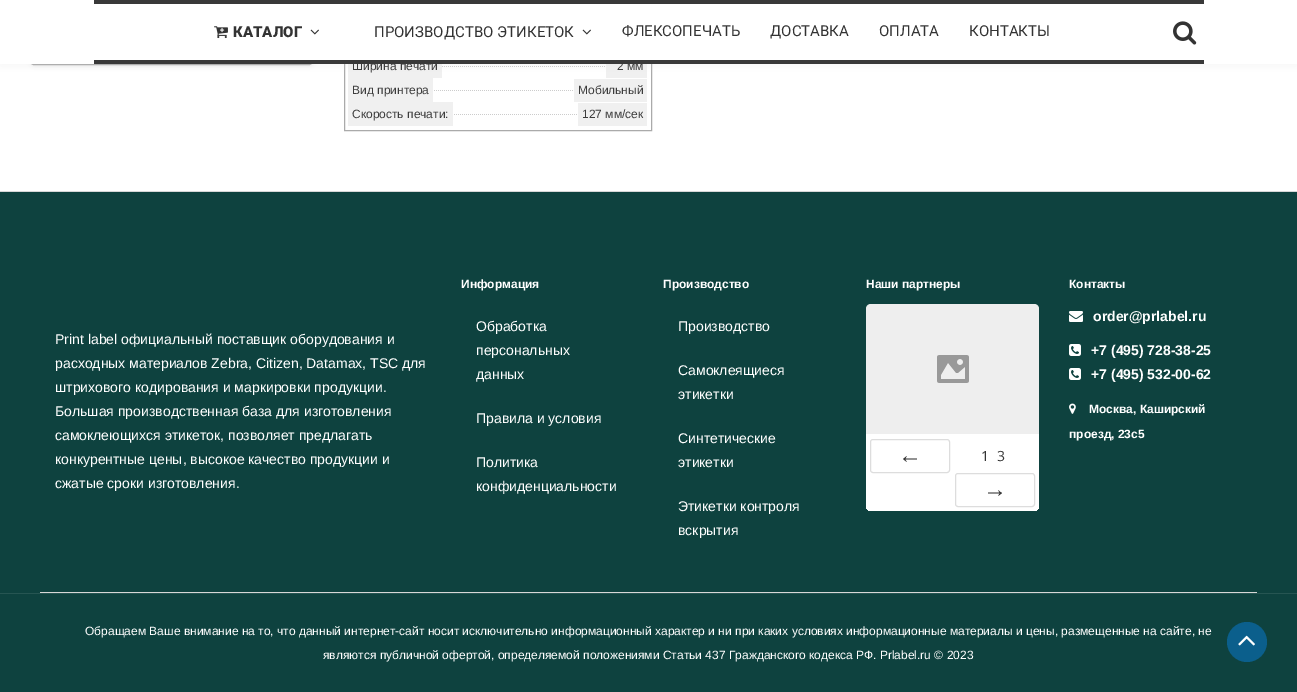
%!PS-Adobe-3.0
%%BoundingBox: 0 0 1297 692
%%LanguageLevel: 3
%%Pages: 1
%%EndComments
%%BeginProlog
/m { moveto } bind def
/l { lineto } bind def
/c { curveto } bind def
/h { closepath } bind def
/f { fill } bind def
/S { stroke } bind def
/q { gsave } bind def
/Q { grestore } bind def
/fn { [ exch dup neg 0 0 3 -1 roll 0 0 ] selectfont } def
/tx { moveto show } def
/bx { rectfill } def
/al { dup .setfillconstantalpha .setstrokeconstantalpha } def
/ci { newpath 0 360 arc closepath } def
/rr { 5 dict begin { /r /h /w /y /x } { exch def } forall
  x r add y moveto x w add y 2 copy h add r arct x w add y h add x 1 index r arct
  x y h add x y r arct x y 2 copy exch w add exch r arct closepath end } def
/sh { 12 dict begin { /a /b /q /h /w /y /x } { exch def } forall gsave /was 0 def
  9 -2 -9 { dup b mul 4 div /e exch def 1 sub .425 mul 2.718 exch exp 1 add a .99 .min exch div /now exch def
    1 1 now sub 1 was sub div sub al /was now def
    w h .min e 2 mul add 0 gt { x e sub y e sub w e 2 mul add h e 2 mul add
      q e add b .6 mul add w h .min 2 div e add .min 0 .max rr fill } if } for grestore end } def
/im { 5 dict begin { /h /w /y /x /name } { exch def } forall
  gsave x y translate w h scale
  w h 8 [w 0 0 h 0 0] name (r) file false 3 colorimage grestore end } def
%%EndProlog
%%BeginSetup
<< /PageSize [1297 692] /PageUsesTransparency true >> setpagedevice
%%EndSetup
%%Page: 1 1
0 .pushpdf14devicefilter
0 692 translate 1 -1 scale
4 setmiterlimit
1 setgray
0 0 1297 692 bx
0 setgray
29 -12 286 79 6 2 0.05 sh
0.667 setgray
29.5 -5.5 284 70 4.5 rr S
344.5 -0.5 307 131 rectstroke
(image3.raw) 442 66 163 1 im
0.941 setgray
348 64 94 14 bx
606 64 41 14 bx
348 78 85 24 bx
574 79 73 23 bx
0.8 setgray
0 2 1297 64 0 5 0.2 sh
/LiberationSans-Regular 12 fn
0.235 setgray
(Ширина печати) 352 70 tx
(2 мм) 617 70 tx
1 setgray
0 0 1297 64 bx
0.224 setgray
94 0 1110 4 bx
94 60 1110 4 bx
(image0.raw) 214 26 14 13 im
/Roboto-Black 15 fn
0.2 setgray
(КАТАЛОГ) 233 37 tx
(image1.raw) 310 29 9 6 im
/Roboto-Regular 15 fn
(ПРОИЗВОДСТВО ЭТИКЕТОК) 374 37 tx
(image1.raw) 582 29 9 6 im
(ФЛЕКСОПЕЧАТЬ) 622 36 tx
(ДОСТАВКА) 770 36 tx
(ОПЛАТА) 879 36 tx
(КОНТАКТЫ) 969 36 tx
(image2.raw) 1173 21 24 24 im
(image4.raw) 434 90 139 1 im
/LiberationSans-Regular 12 fn
0.235 setgray
(Вид принтера) 352 94 tx
(Мобильный) 578 94 tx
(image5.raw) 454 114 123 1 im
0.941 setgray
348 102 105 24 bx
0.235 setgray
(Скорость печати:) 352 118 tx
0.941 setgray
578 103 69 23 bx
0.235 setgray
(127 мм/сек) 582 118 tx
0.055 0.259 0.247 setrgbcolor
0 192 1297 500 bx
0.843 setgray
0 191 1297 1 bx
40 592 1217 1 bx
/LiberationSans-Regular 14 fn
1 setgray
(Print label официальный поставщик оборудования и) 55 344 tx
(расходных материалов Zebra, Citizen, Datamax, TSC для) 55 368 tx
(штрихового кодирования и маркировки продукции.) 55 392 tx
(Большая производственная база для изготовления) 55 416 tx
(самоклеющихся этикеток, позволяет предлагать) 55 440 tx
(конкурентные цены, высокое качество продукции и) 55 464 tx
(сжатые сроки изготовления.) 55 488 tx
/LiberationSans-Bold 12 fn
(Информация) 461 288 tx
/LiberationSans-Regular 14 fn
(Обработка) 476 331 tx
(персональных) 476 355 tx
(данных) 476 379 tx
(Правила и условия) 476 423 tx
(Политика) 476 467 tx
(конфиденциальности) 476 491 tx
/LiberationSans-Bold 12 fn
(Производство) 663 288 tx
/LiberationSans-Regular 14 fn
(Производство) 678 331 tx
(Самоклеящиеся) 678 375 tx
(этикетки) 678 399 tx
(Синтетические) 678 443 tx
(этикетки) 678 467 tx
(Этикетки контроля) 678 511 tx
(вскрытия) 678 535 tx
/LiberationSans-Bold 12 fn
(Наши партнеры) 866 288 tx
0.933 setgray
871 304 m 1034 304 l 1037 304 1039 306 1039 309 c 1039 434 l 866 434 l 866 309 l 866 306 868 304 871 304 c h f
(image6.raw) 937 355 32 28 im
1 setgray
870 439 165 68 bx
866 434 173 5 bx
q
866 304 173 207 5 rr clip newpath
1035 438 4 73 bx
866 507 173 4 bx
866 438 4 73 bx
Q
0.867 setgray
870.5 439.5 79 33 2.5 rr S
/LiberationSans-Regular 24 fn
0.2 setgray
(←) 898 463 tx
/OpenSans-Regular 14 fn
(1) 981 461 tx
(3) 997 461 tx
0.867 setgray
955.5 473.5 79 33 2.5 rr S
/LiberationSans-Regular 24 fn
0.2 setgray
(→) 983 497 tx
/LiberationSans-Bold 12 fn
1 setgray
(Контакты) 1069 288 tx
(image7.raw) 1069 311 14 11 im
/LiberationSans-Bold 14 fn
(order@prlabel.ru) 1093 321 tx
(image8.raw) 1069 344 12 12 im
(+7 \(495\) 728-38-25) 1091 355 tx
(image8.raw) 1069 368 12 12 im
(+7 \(495\) 532-00-62) 1091 379 tx
(image9.raw) 1069 403 7 11 im
/LiberationSans-Bold 12 fn
(Москва, Каширский) 1089 413 tx
(проезд, 23с5) 1069 438 tx
0.149 0.333 0.322 setrgbcolor
0 593 1297 1 bx
/LiberationSans-Regular 12 fn
1 setgray
(Обращаем Ваше внимание на то, что данный интернет-сайт носит исключительно информационный характер и ни при каких условиях информационные материалы и цены, размещенные на сайте, не) 85 635 tx
(являются публичной офертой, определяемой положениями Статьи 437 Гражданского кодекса РФ. Prlabel.ru © 2023) 323 659 tx
0.043 0.373 0.549 setrgbcolor
1247 642 20 ci f
(image10.raw) 1238 635 17 11 im
.poppdf14devicefilter showpage
%%EOF
